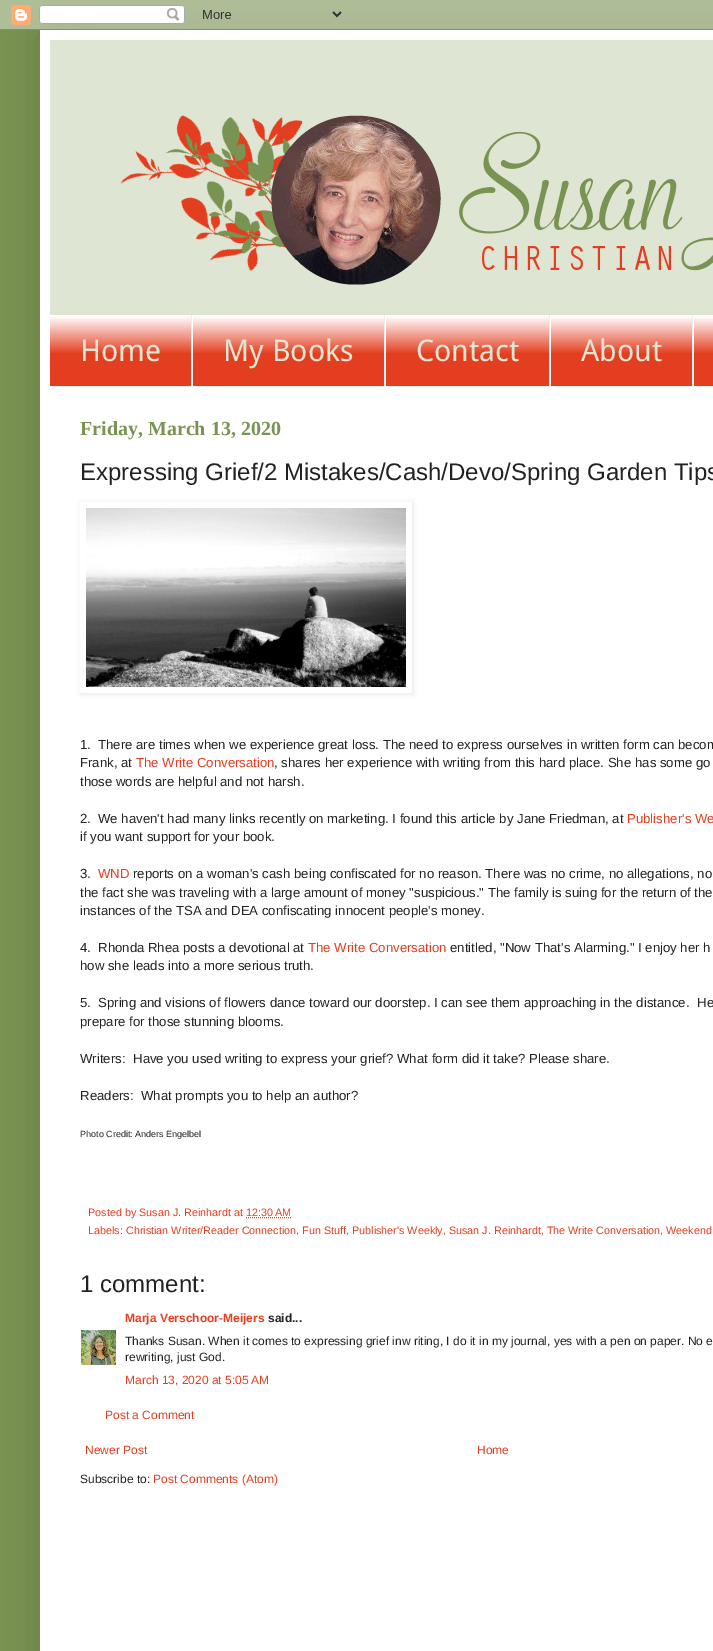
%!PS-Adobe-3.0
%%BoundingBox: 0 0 713 1651
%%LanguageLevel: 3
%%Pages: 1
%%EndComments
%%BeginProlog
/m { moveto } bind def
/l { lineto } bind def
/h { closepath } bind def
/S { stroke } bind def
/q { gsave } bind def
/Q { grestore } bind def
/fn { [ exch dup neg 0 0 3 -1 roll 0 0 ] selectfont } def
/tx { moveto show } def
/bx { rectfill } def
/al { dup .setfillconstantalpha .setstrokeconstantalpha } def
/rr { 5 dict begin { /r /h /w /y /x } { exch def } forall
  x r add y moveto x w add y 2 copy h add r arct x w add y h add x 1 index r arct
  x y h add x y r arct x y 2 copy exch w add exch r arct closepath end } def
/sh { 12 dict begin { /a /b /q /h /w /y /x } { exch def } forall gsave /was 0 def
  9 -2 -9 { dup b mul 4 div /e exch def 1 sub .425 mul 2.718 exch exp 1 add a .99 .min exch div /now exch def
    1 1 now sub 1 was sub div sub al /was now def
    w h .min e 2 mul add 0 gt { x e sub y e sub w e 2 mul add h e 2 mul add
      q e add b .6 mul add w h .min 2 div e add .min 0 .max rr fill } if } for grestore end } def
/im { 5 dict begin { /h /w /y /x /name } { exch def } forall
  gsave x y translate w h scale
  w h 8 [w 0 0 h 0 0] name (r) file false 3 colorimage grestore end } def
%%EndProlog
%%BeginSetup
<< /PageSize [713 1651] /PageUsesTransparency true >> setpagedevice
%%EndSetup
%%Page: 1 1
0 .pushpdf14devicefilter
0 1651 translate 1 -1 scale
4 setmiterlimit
0.475 0.576 0.322 setrgbcolor
0 0 713 1651 bx
0 setgray
40 30 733 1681 0 20 0.15 sh
(image0.raw) 0 0 713 30 im
1 setgray
40 30 673 1621 bx
(image1.raw) 50 40 663 275 im
0.89 0.243 0.125 setrgbcolor
50 316 663 70 bx
(image2.raw) 50 315 663 38 im
0.933 setgray
50 386 663 1 bx
191 315 1 71 bx
/DroidSans-Regular 30 fn
0.871 0.898 0.824 setrgbcolor
(Home) 80 361 tx
0.933 setgray
384 315 1 71 bx
1 setgray
192 315 1 71 bx
0.871 0.898 0.824 setrgbcolor
(My Books) 223 361 tx
0.933 setgray
549 315 1 71 bx
1 setgray
385 315 1 71 bx
0.871 0.898 0.824 setrgbcolor
(Contact) 416 361 tx
0.933 setgray
692 315 1 71 bx
1 setgray
550 315 1 71 bx
0.871 0.898 0.824 setrgbcolor
(About) 581 361 tx
1 setgray
693 315 1 71 bx
/LiberationSerif-Bold 20 fn
0.475 0.576 0.322 setrgbcolor
(Friday, March 13, 2020) 80 435 tx
/LiberationSans-Regular 24 fn
0.133 setgray
(Expressing Grief/2 Mistakes/Cash/Devo/Spring Garden Tips) 80 480 tx
q
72 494 m 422 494 l 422 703 l 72 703 l h 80 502 m 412 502 l 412 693 l 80 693 l h eoclip newpath
0 setgray
81 503 332 191 0 2.5 0.1 sh
Q
(image3.raw) 86 508 320 179 im
/LiberationSans-Regular 13.2 fn
(1.) 80 749 tx
(There are times when we experience great loss. The need to express ourselves in written form can becom) 98 749 tx
(Frank, at) 80 767 tx
0.89 0.243 0.125 setrgbcolor
(The Write Conversation) 136 767 tx
0.133 setgray
(, shares her experience with writing from this hard place. She has some go) 274 767 tx
(those words are helpful and not harsh.) 80 786 tx
(2.) 80 823 tx
(We haven't had many links recently on marketing. I found this article by Jane Friedman, at) 98 823 tx
0.89 0.243 0.125 setrgbcolor
(Publisher's We) 627 823 tx
0.133 setgray
(if you want support for your book.) 80 841 tx
(3.) 80 878 tx
0.89 0.243 0.125 setrgbcolor
(WND) 98 878 tx
0.133 setgray
(reports on a woman's cash being confiscated for no reason. There was no crime, no allegations, no) 133 878 tx
(the fact she was traveling with a large amount of money "suspicious." The family is suing for the return of the) 80 897 tx
(instances of the TSA and DEA confiscating innocent people's money.) 80 915 tx
(4.) 80 952 tx
(Rhonda Rhea posts a devotional at) 98 952 tx
0.89 0.243 0.125 setrgbcolor
(The Write Conversation) 308 952 tx
0.133 setgray
(entitled, "Now That's Alarming." I enjoy her h) 450 952 tx
(how she leads into a more serious truth.) 80 970 tx
(5.) 80 1007 tx
(Spring and visions of flowers dance toward our doorstep. I can see them approaching in the distance.) 98 1007 tx
(He) 697 1007 tx
(prepare for those stunning blooms.) 80 1026 tx
(Writers:) 80 1063 tx
(Have you used writing to express your grief? What form did it take? Please share.) 133 1063 tx
(Readers:) 80 1100 tx
(What prompts you to help an author?) 141 1100 tx
/LiberationSans-Regular 9 fn
(Photo Credit: Anders Engelbel) 80 1137 tx
/LiberationSans-Regular 10.8 fn
0.89 0.243 0.125 setrgbcolor
(Posted by Susan J. Reinhardt at 12:30 AM) 88 1216 tx
[1 1] 0 setdash
246 1217.5 m 291.5 1217.5 l S
(Labels: Christian Writer/Reader Connection, Fun Stuff, Publisher's Weekly, Susan J. Reinhardt, The Write Conversation, Weekend) 88 1234 tx
/LiberationSans-Regular 24 fn
0.133 setgray
(1 comment:) 80 1292 tx
/LiberationSans-Bold 12 fn
0.89 0.243 0.125 setrgbcolor
(Marja Verschoor-Meijers) 125 1322 tx
0.133 setgray
(said...) 268 1322 tx
(image4.raw) 81 1330 35 35 im
/LiberationSans-Regular 12 fn
(Thanks Susan. When it comes to expressing grief inw riting, I do it in my journal, yes with a pen on paper. No e) 125 1345 tx
(rewriting, just God.) 125 1361 tx
0.89 0.243 0.125 setrgbcolor
(March 13, 2020 at 5:05 AM) 125 1384 tx
(Post a Comment) 105 1419 tx
(Newer Post) 85 1454 tx
(Home) 477 1454 tx
0.133 setgray
(Subscribe to:) 80 1483 tx
0.89 0.243 0.125 setrgbcolor
(Post Comments \(Atom\)) 153 1483 tx
.poppdf14devicefilter showpage
%%EOF
